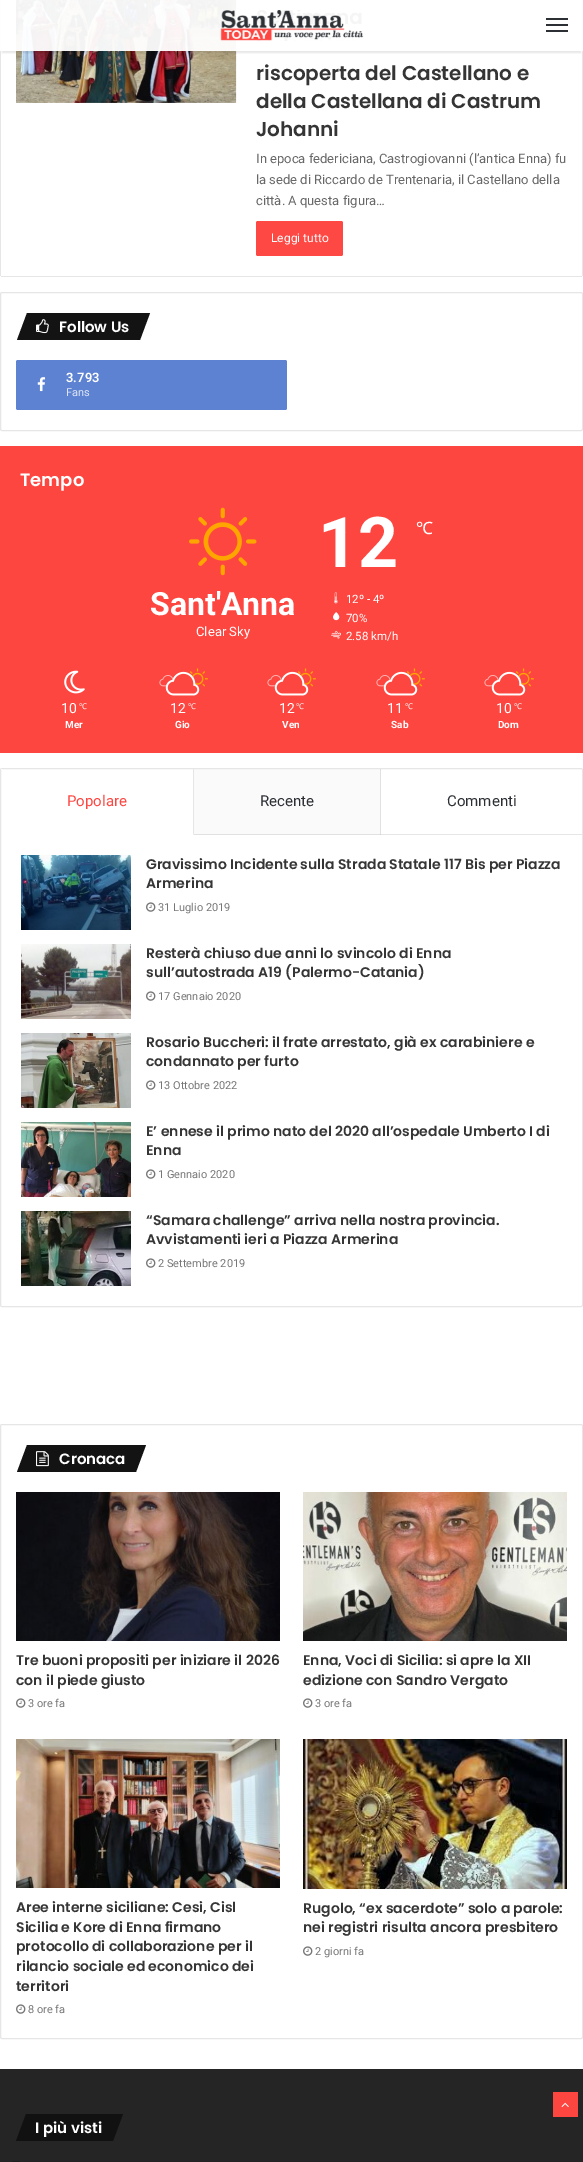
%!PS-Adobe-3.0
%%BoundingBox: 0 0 583 2162
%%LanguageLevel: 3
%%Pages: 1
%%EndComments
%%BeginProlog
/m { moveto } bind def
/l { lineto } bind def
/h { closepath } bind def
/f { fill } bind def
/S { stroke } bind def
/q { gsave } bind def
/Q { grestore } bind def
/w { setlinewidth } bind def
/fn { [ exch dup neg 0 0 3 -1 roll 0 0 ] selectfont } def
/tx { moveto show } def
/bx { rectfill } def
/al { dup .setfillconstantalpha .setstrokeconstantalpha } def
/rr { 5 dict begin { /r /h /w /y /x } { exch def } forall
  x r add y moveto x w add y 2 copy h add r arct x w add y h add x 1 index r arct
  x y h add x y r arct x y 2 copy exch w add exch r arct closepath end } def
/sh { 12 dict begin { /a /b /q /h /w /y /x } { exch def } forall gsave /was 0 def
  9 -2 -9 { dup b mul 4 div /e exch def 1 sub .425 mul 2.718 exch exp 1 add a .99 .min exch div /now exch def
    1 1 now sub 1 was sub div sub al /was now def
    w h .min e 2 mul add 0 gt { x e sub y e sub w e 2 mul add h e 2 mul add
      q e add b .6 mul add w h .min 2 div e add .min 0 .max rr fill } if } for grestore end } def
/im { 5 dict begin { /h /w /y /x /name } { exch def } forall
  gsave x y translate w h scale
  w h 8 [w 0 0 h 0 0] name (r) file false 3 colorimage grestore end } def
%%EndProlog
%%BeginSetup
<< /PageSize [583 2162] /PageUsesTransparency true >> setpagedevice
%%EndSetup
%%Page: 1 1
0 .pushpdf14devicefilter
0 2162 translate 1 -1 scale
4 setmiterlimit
1 setgray
0 0 583 2162 bx
0.98 setgray
194 769 187 65 bx
0.902 setgray
582 0 1 276 bx
0 0 1 276 bx
(image1.raw) 16 0 221 103 im
q
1 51 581 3 rectclip
0 setgray
2 6 579 47 0 1 0.1 sh
Q
0.95 al
1 setgray
0 0 583 51 bx
1 al
(image0.raw) 220 10 144 31 im
0.173 0.184 0.204 setrgbcolor
546 24 22 2 bx
546 18 22 2 bx
546 30 22 2 bx
0.902 setgray
1 276 581 1 bx
/Poppins-SemiBold 20 fn
0.208 setgray
(riscoperta del Castellano e) 256 80 tx
(della Castellana di Castrum) 256 108 tx
(Johanni) 256 136 tx
/Roboto-Regular 13 fn
0.408 setgray
(In epoca federiciana, Castrogiovanni \(l’antica Enna\) fu) 256 163 tx
(la sede di Riccardo de Trentenaria, il Castellano della) 256 184 tx
(città. A questa figura…) 256 205 tx
0.996 0.282 0.263 setrgbcolor
256 221 87 35 2 rr f
/Roboto-Regular 12 fn
1 setgray
(Leggi tutto) 271 242 tx
0.902 setgray
0.5 292.5 582 138 1.5 rr S
0.075 setgray
27 313 m 150 313 l 140 340 l 17 340 l h f
(image2.raw) 36 319 13 15 im
/Poppins-SemiBold 15 fn
1 setgray
(Follow Us) 59 332 tx
0.365 0.51 0.82 setrgbcolor
16 360 271 50 2 rr f
(image3.raw) 37 377 9 15 im
/Roboto-SemiBold 13 fn
1 setgray
(3.793) 66 382 tx
/Roboto-Regular 11 fn
0.875 0.902 0.965 setrgbcolor
(Fans) 66 396 tx
0.996 0.275 0.255 setrgbcolor
0 446 583 307 bx
/Poppins-SemiBold 18 fn
1 setgray
(Tempo) 20 486 tx
(image4.raw) 189 507 68 69 im
/Roboto-Bold 32 fn
(Sant'Anna) 150 615 tx
/Roboto-Regular 13 fn
(Clear Sky) 196 636 tx
/Roboto-Bold 70 fn
(12) 318 567 tx
/NotoSans-Regular 17 fn
(℃) 416 534 tx
(image5.raw) 334 592 4 12 im
/Roboto-Regular 11.5 fn
(12º - 4º) 346 603 tx
(image6.raw) 333 612 7 9 im
(70%) 346 622 tx
(image7.raw) 331 631 10 8 im
(2.58 km/h) 346 640 tx
(image8.raw) 64 670 21 24 im
/Roboto-Regular 14 fn
(10) 61 713 tx
/NotoSans-Regular 8 fn
(℃) 79 709 tx
/Roboto-Bold 10 fn
(Mer) 65 728 tx
(image9.raw) 189 668 19 20 im
(image11.raw) 159 675 15 12 im
(image12.raw) 165 676 34 14 im
(image10.raw) 165 671 35 25 im
/Roboto-Regular 14 fn
(12) 170 713 tx
/NotoSans-Regular 8 fn
(℃) 188 709 tx
/Roboto-Bold 10 fn
(Gio) 175 728 tx
(image13.raw) 297 668 19 19 im
(image11.raw) 267 675 15 12 im
(image15.raw) 274 675 33 15 im
(image14.raw) 274 671 35 25 im
/Roboto-Regular 14 fn
(12) 279 713 tx
/NotoSans-Regular 8 fn
(℃) 296 709 tx
/Roboto-Bold 10 fn
(Ven) 282 728 tx
(image13.raw) 406 668 19 19 im
(image11.raw) 376 675 15 12 im
(image15.raw) 383 675 33 15 im
(image14.raw) 383 671 35 25 im
/Roboto-Regular 14 fn
(11) 387 713 tx
/NotoSans-Regular 8 fn
(℃) 405 709 tx
/Roboto-Bold 10 fn
(Sab) 391 728 tx
(image9.raw) 515 668 19 20 im
(image11.raw) 484 675 15 12 im
(image17.raw) 491 676 34 14 im
(image16.raw) 491 671 35 25 im
/Roboto-Regular 14 fn
(10) 496 713 tx
/NotoSans-Regular 8 fn
(℃) 514 709 tx
/Roboto-Bold 10 fn
(Dom) 498 728 tx
0.902 setgray
0.5 768.5 582 538 1.5 rr S
381 834 201 1 bx
0.882 setgray
194 834 187 1 bx
1 setgray
1 769 1 1 bx
0.902 setgray
194 769 m 194 835 l 193 834 l 193 769 l h f
/Roboto-Regular 15 fn
0.996 0.275 0.255 setrgbcolor
(Popolare) 67 806 tx
0.1 al
0 setgray
381 769 m 381 835 l 380 834 l 380 769 l h f
1 al
0.173 0.184 0.204 setrgbcolor
(Recente) 260 806 tx
(Commenti) 447 806 tx
(image18.raw) 21 855 110 75 im
/Poppins-SemiBold 14 fn
0.208 setgray
(Gravissimo Incidente sulla Strada Statale 117 Bis per Piazza) 146 869 tx
(Armerina) 146 888 tx
(image19.raw) 146 902 10 10 im
/Roboto-Regular 11 fn
0.463 setgray
(31 Luglio 2019) 158 911 tx
(image20.raw) 21 944 110 75 im
/Poppins-SemiBold 14 fn
0.208 setgray
(Resterà chiuso due anni lo svincolo di Enna) 146 958 tx
(sull’autostrada A19 \(Palermo-Catania\)) 146 977 tx
(image19.raw) 146 991 10 10 im
/Roboto-Regular 11 fn
0.463 setgray
(17 Gennaio 2020) 158 1000 tx
(image21.raw) 21 1033 110 75 im
/Poppins-SemiBold 14 fn
0.208 setgray
(Rosario Buccheri: il frate arrestato, già ex carabiniere e) 146 1047 tx
(condannato per furto) 146 1066 tx
(image19.raw) 146 1080 10 10 im
/Roboto-Regular 11 fn
0.463 setgray
(13 Ottobre 2022) 158 1089 tx
(image22.raw) 21 1122 110 75 im
/Poppins-SemiBold 14 fn
0.208 setgray
(E’ ennese il primo nato del 2020 all’ospedale Umberto I di) 146 1136 tx
(Enna) 146 1155 tx
(image19.raw) 146 1169 10 10 im
/Roboto-Regular 11 fn
0.463 setgray
(1 Gennaio 2020) 158 1178 tx
(image23.raw) 21 1211 110 75 im
/Poppins-SemiBold 14 fn
0.208 setgray
(“Samara challenge” arriva nella nostra provincia.) 146 1225 tx
(Avvistamenti ieri a Piazza Armerina) 146 1244 tx
(image19.raw) 146 1258 10 10 im
/Roboto-Regular 11 fn
0.463 setgray
(2 Settembre 2019) 158 1267 tx
0.902 setgray
0.5 1424.5 582 614 1.5 rr S
0.075 setgray
27 1445 m 146 1445 l 136 1472 l 17 1472 l h f
(image24.raw) 36 1451 13 16 im
/Poppins-SemiBold 15 fn
1 setgray
(Cronaca) 59 1464 tx
(image25.raw) 16 1492 264 149 im
/Poppins-SemiBold 14 fn
0.208 setgray
(Tre buoni propositi per iniziare il 2026) 16 1665 tx
(con il piede giusto) 16 1685 tx
(image19.raw) 16 1698 10 10 im
/Roboto-Regular 11 fn
0.463 setgray
(3 ore fa) 28 1707 tx
(image26.raw) 303 1492 264 149 im
/Poppins-SemiBold 14 fn
0.208 setgray
(Enna, Voci di Sicilia: si apre la XII) 303 1665 tx
(edizione con Sandro Vergato) 303 1685 tx
(image19.raw) 303 1698 10 10 im
/Roboto-Regular 11 fn
0.463 setgray
(3 ore fa) 315 1707 tx
(image27.raw) 16 1739 264 149 im
/Poppins-SemiBold 14 fn
0.208 setgray
(Aree interne siciliane: Cesi, Cisl) 16 1912 tx
(Sicilia e Kore di Enna firmano) 16 1932 tx
(protocollo di collaborazione per il) 16 1951 tx
(rilancio sociale ed economico dei) 16 1971 tx
(territori) 16 1991 tx
(image19.raw) 16 2004 10 10 im
/Roboto-Regular 11 fn
0.463 setgray
(8 ore fa) 28 2013 tx
(image28.raw) 303 1739 264 150 im
/Poppins-SemiBold 14 fn
0.208 setgray
(Rugolo, “ex sacerdote” solo a parole:) 303 1913 tx
(nei registri risulta ancora presbitero) 303 1932 tx
(image19.raw) 303 1946 10 10 im
/Roboto-Regular 11 fn
0.463 setgray
(2 giorni fa) 315 1955 tx
0.145 setgray
0 2069 583 93 bx
0.996 0.275 0.255 setrgbcolor
553 2092 25 25 bx
(image29.raw) 561 2102 8 5 im
0.067 setgray
26 2114 m 123 2114 l 113 2141 l 16 2141 l h f
/Poppins-SemiBold 15 fn
1 setgray
(I più visti) 35 2133 tx
0.027 setgray
10 2161 12 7 6 rr f
0.8 al
0.145 setgray
3 w
11.5 2162.5 9 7 4.5 rr S
.poppdf14devicefilter showpage
%%EOF
